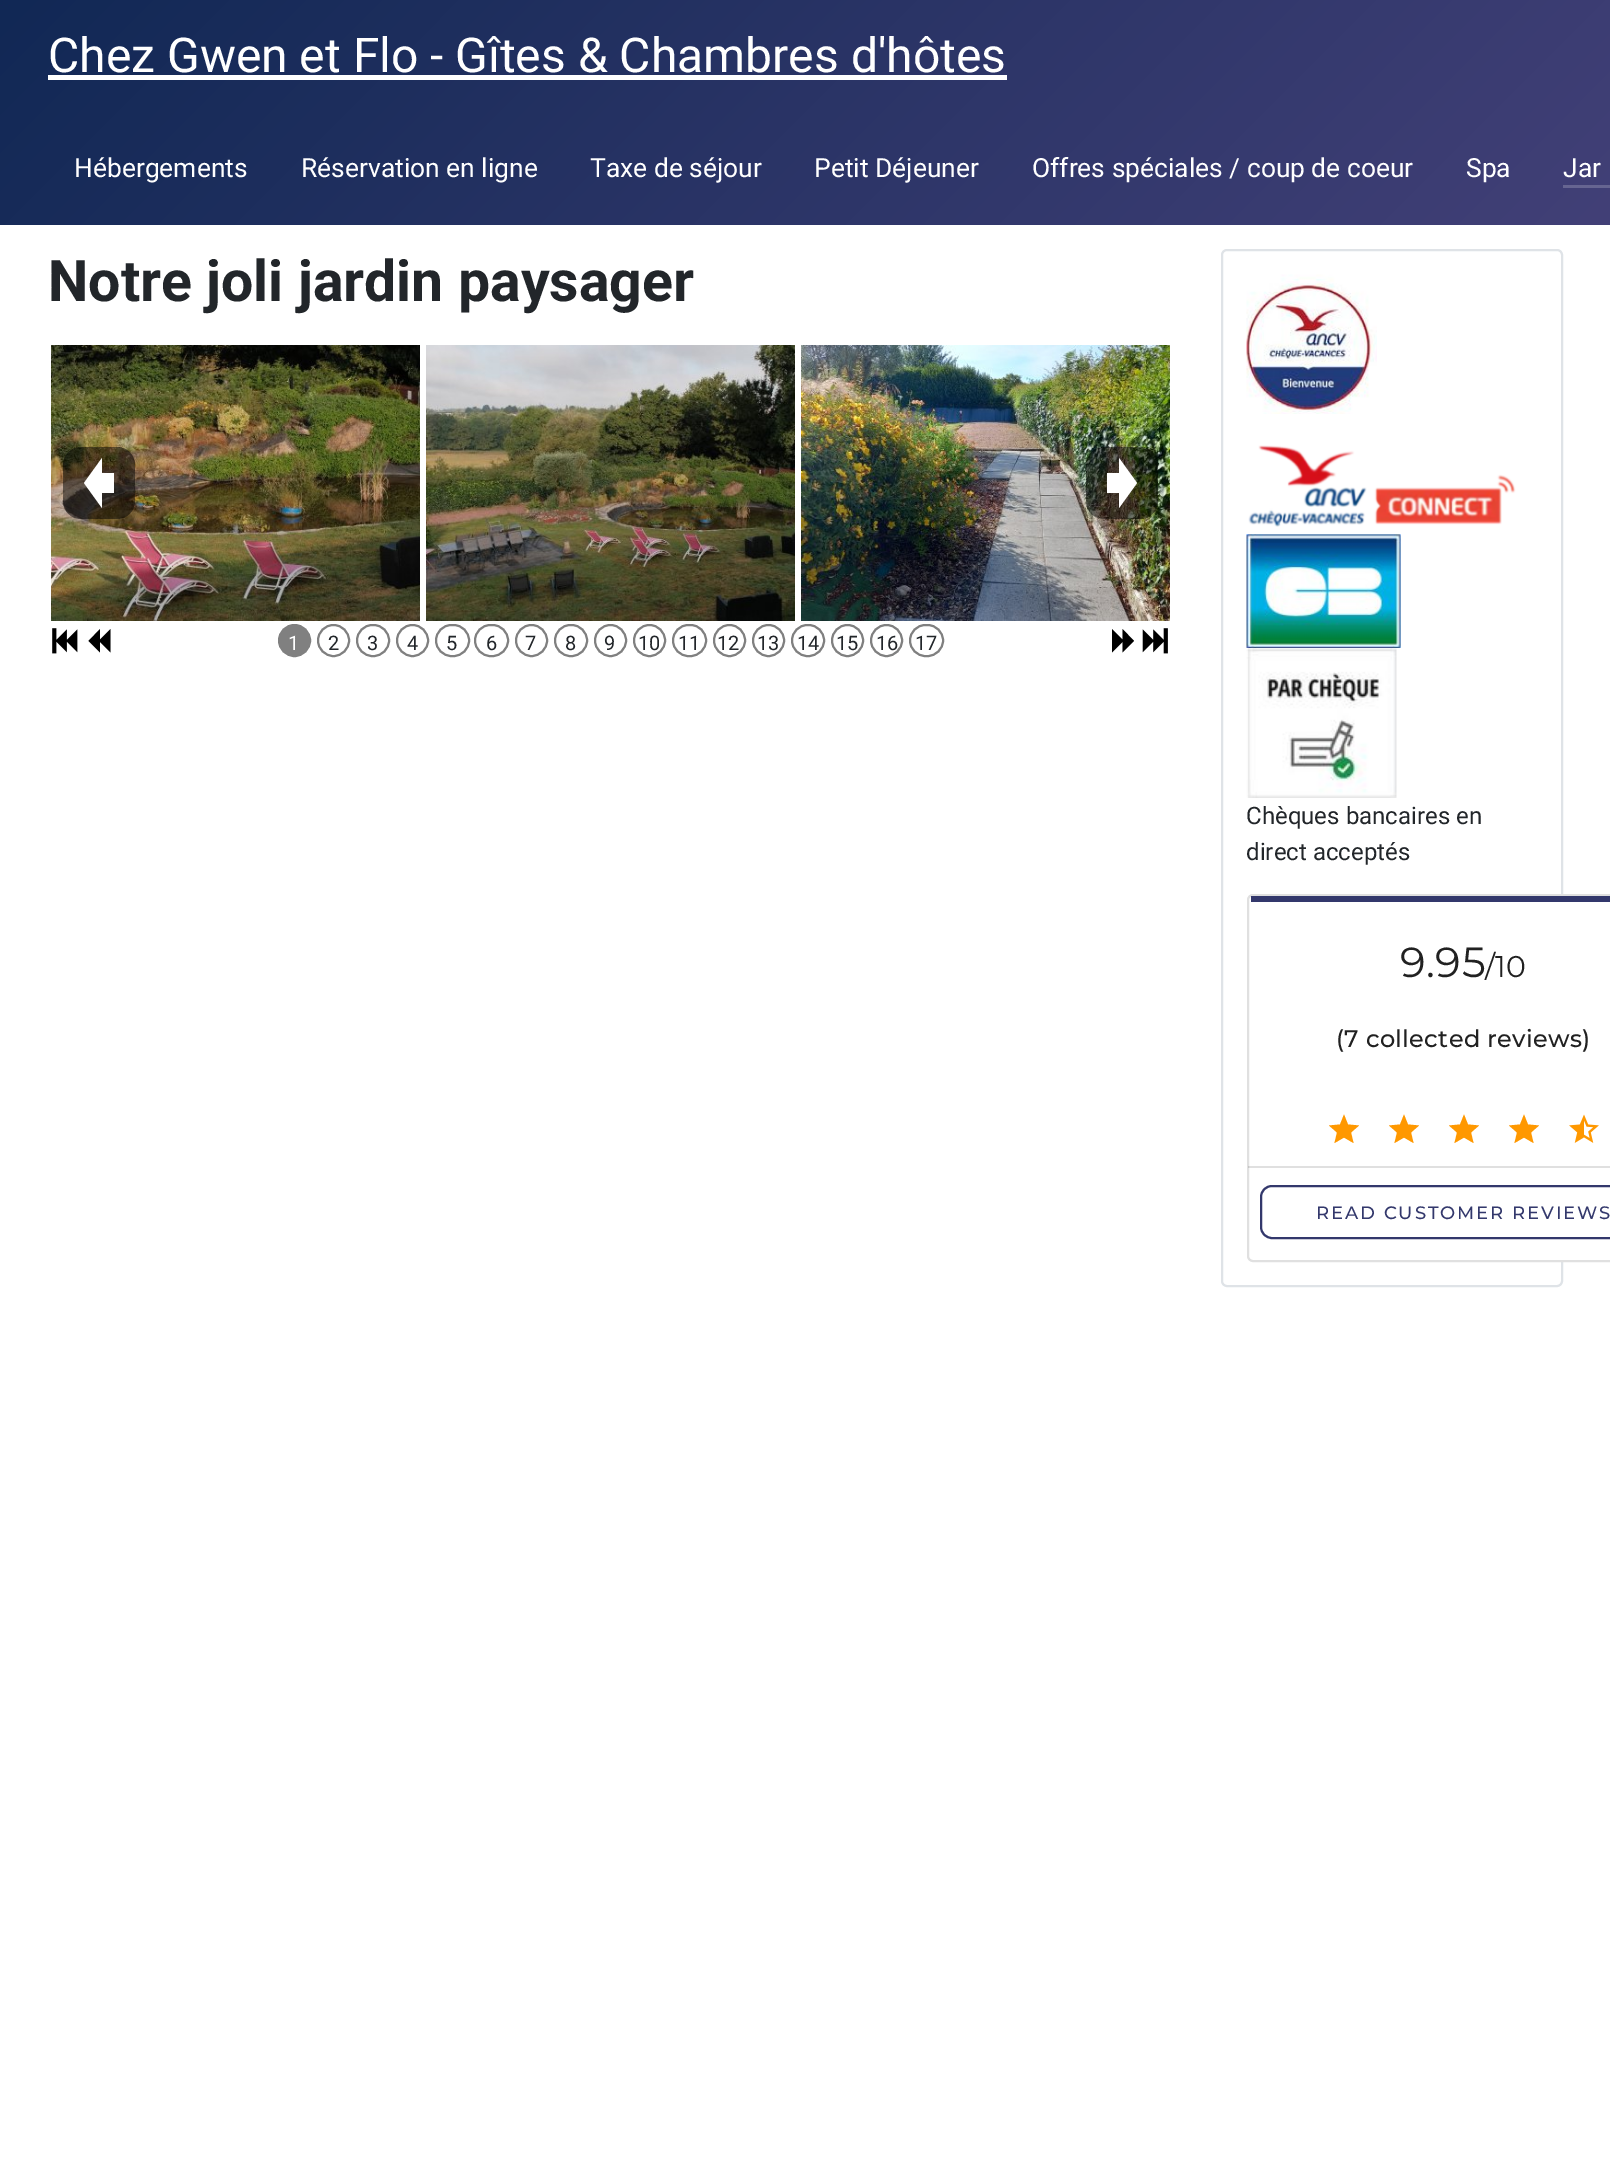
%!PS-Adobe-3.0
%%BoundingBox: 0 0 1610 2170
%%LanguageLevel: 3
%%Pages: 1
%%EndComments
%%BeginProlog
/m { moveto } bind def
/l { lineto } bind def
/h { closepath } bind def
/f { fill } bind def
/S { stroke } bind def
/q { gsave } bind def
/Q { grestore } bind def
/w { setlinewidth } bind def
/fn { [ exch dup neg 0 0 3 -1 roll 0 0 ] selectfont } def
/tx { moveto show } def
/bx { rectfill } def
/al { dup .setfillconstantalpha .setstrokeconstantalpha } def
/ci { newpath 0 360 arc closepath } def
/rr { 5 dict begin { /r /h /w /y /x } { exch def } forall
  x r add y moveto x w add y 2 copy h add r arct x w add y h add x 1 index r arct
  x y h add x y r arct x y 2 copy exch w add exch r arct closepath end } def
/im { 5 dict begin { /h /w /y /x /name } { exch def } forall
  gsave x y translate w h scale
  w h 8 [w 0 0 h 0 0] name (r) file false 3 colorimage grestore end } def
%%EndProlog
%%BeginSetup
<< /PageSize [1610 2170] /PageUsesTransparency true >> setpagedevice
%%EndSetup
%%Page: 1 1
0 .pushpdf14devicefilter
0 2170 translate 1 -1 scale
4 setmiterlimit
1 setgray
0 0 1610 2170 bx
q 0 0 m 1610 0 l 1610 225 l 0 225 l h clip newpath
<< /ShadingType 2 /ColorSpace /DeviceRGB /Coords [346 -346 1265 572] /Extend [true true] /Function << /FunctionType 2 /Domain [0 1] /C0 [0.067 0.157 0.333] /C1 [0.259 0.251 0.467] /N 1 >> >> shfill Q
/Roboto-Regular 48 fn
(Chez Gwen et Flo - Gîtes & Chambres d'hôtes) 48 72 tx
48 75 959 5 bx
/Roboto-Regular 26.4 fn
(Hébergements) 74 177 tx
(Réservation en ligne) 301 177 tx
(Taxe de séjour) 590 177 tx
(Petit Déjeuner) 814 177 tx
(Offres spéciales / coup de coeur) 1032 177 tx
(Spa) 1466 177 tx
(Jar) 1563 177 tx
0.4 0.396 0.569 setrgbcolor
1563 185 47 3 bx
/Roboto-Bold 57.2 fn
0.133 0.149 0.165 setrgbcolor
(Notre joli jardin paysager) 48 301 tx
(image0.raw) 51 345 369 276 im
(image1.raw) 426 345 369 276 im
(image2.raw) 801 345 369 276 im
0.5 al
0 setgray
63 447 72 72 18 rr f
1 al
1 setgray
102 473 m 114 473 l 114 493 l 102 493 l h 84 483 m 102 508 l 102 508 m 84 483 l 102 458 l f
0.5 al
0 setgray
1086 447 72 72 18 rr f
1 al
1 setgray
1119 473 m 1107 473 l 1107 493 l 1119 493 l h 1137 483 m 1119 508 l 1119 508 m 1137 483 l 1119 458 l f
(image3.raw) 52 628 26 26 im
0 setgray
100 629 m 100 639.5 l 110.5 629 l 110.5 652.5 l 100 642 l 100 652.5 l 88.5 641 l h f
0.502 setgray
294.5 640.5 15.5 ci q f Q
2 w
S
/Roboto-Regular 20 fn
1 setgray
(1) 288 650 tx
0.502 setgray
333.5 640.5 15.5 ci S
0.133 0.149 0.165 setrgbcolor
(2) 328 650 tx
0.502 setgray
357 625 32 31 15.5 rr S
0.133 0.149 0.165 setrgbcolor
(3) 367 650 tx
0.502 setgray
412.5 640.5 15.5 ci S
0.133 0.149 0.165 setrgbcolor
(4) 407 650 tx
0.502 setgray
436 625 33 31 15.5 rr S
0.133 0.149 0.165 setrgbcolor
(5) 446 650 tx
0.502 setgray
475 625 33 31 15.5 rr S
0.133 0.149 0.165 setrgbcolor
(6) 486 650 tx
0.502 setgray
531.5 640.5 15.5 ci S
0.133 0.149 0.165 setrgbcolor
(7) 525 650 tx
0.502 setgray
555 625 32 31 15.5 rr S
0.133 0.149 0.165 setrgbcolor
(8) 565 650 tx
0.502 setgray
610.5 640.5 15.5 ci S
0.133 0.149 0.165 setrgbcolor
(9) 604 650 tx
0.502 setgray
649.5 640.5 15.5 ci S
0.133 0.149 0.165 setrgbcolor
(10) 638 650 tx
0.502 setgray
673 625 33 31 15.5 rr S
0.133 0.149 0.165 setrgbcolor
(11) 678 650 tx
0.502 setgray
729.5 640.5 15.5 ci S
0.133 0.149 0.165 setrgbcolor
(12) 717 650 tx
0.502 setgray
768.5 640.5 15.5 ci S
0.133 0.149 0.165 setrgbcolor
(13) 757 650 tx
0.502 setgray
792 625 32 31 15.5 rr S
0.133 0.149 0.165 setrgbcolor
(14) 797 650 tx
0.502 setgray
847.5 640.5 15.5 ci S
0.133 0.149 0.165 setrgbcolor
(15) 836 650 tx
0.502 setgray
886.5 640.5 15.5 ci S
0.133 0.149 0.165 setrgbcolor
(16) 876 650 tx
0.502 setgray
910 625 33 31 15.5 rr S
0.133 0.149 0.165 setrgbcolor
(17) 915 650 tx
0 setgray
1122.5 652.5 m 1122.5 642 l 1112 652.5 l 1112 629 l 1122.5 639.5 l 1122.5 629 l 1134 641 l h f
(image4.raw) 1142 628 26 26 im
0.875 0.89 0.906 setrgbcolor
1222 250 340 1036 5 rr S
(image5.raw) 1246 274 131 140 im
(image6.raw) 1248 445 268 82 im
(image7.raw) 1246 534 155 114 im
(image8.raw) 1246 648 151 150 im
/Roboto-Regular 24 fn
0.133 0.149 0.165 setrgbcolor
(Chèques bancaires en) 1246 824 tx
(direct acceptés) 1246 860 tx
1 setgray
1248 895 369 366 5 rr q f Q
0.878 setgray
S
0.2 0.22 0.424 setrgbcolor
1251 896 359 6 bx
/Montserrat-Regular 42 fn
0.129 setgray
1400 977 m 0.5 0 (9.95) ashow
/Montserrat-Regular 30 fn
(/10) 1485 977 tx
/Montserrat-Medium 24 fn
1336 1047 m 0.3 0 (\(7 collected reviews\)) ashow
1 0.596 0 setrgbcolor
1344 1137.5 m 1353.5 1143 l 1351 1132.5 l 1359 1125.5 l 1348 1124.5 l 1344 1114.5 l 1340 1124.5 l 1329 1125.5 l 1337 1132.5 l 1334.5 1143 l h f
1404 1137.5 m 1413.5 1143 l 1411 1132.5 l 1419 1125.5 l 1408 1124.5 l 1404 1114.5 l 1400 1124.5 l 1389 1125.5 l 1397 1132.5 l 1394.5 1143 l h f
1464 1137.5 m 1473.5 1143 l 1471 1132.5 l 1479 1125.5 l 1468 1124.5 l 1464 1114.5 l 1460 1124.5 l 1449 1125.5 l 1457 1132.5 l 1454.5 1143 l h f
1524 1137.5 m 1533.5 1143 l 1531 1132.5 l 1539 1125.5 l 1528 1124.5 l 1524 1114.5 l 1520 1124.5 l 1509 1125.5 l 1517 1132.5 l 1514.5 1143 l h f
(image9.raw) 1569 1114 30 29 im
0.12 al
0 setgray
1248 1166 362 2 bx
1 al
0.2 0.22 0.424 setrgbcolor
1261 1186 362 52 11 rr S
/Montserrat-Medium 18 fn
1316 1219 m 1.9 0 (READ CUSTOMER REVIEWS) ashow
.poppdf14devicefilter showpage
%%EOF
